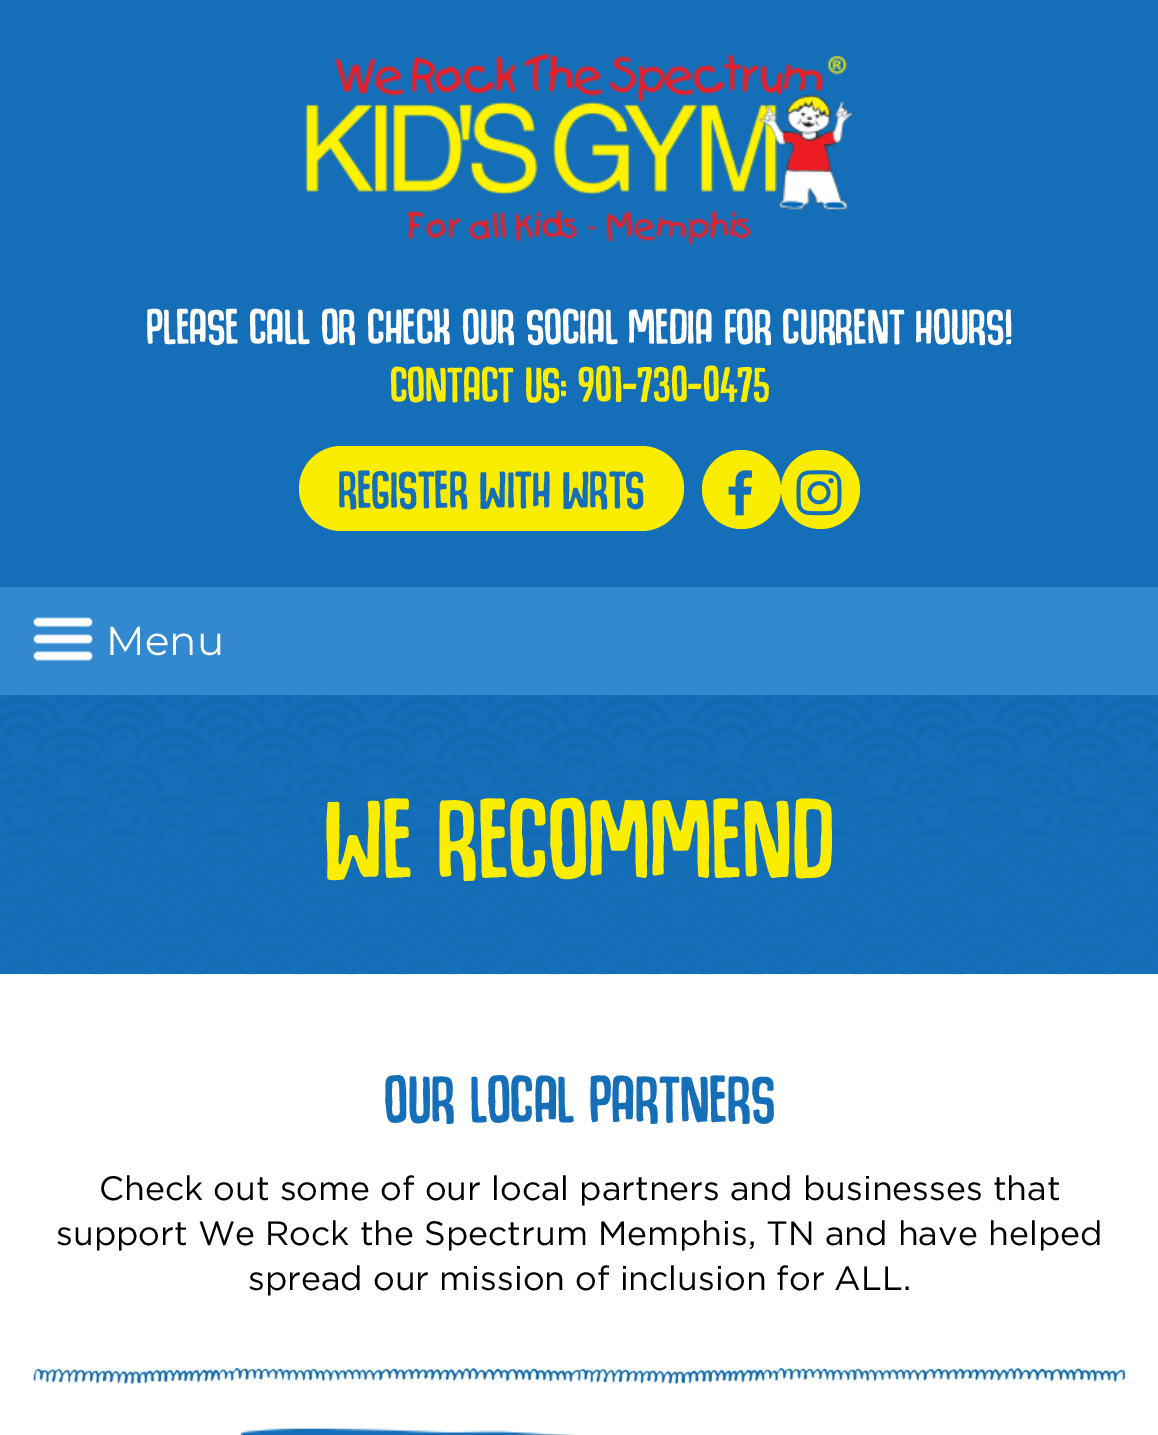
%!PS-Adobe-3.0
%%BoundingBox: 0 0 1158 1435
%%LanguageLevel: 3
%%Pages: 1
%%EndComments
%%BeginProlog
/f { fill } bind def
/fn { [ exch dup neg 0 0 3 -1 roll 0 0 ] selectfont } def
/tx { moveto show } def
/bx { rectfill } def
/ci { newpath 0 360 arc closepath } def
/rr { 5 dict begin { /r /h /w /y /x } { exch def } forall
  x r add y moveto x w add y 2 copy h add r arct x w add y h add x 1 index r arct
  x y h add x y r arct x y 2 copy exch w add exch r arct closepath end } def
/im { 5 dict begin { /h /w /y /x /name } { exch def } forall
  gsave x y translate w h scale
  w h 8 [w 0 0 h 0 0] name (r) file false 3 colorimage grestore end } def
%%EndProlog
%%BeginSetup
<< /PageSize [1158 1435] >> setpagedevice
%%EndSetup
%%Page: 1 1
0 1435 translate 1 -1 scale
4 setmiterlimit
1 setgray
0 0 1158 1435 bx
0.078 0.435 0.722 setrgbcolor
0 0 1158 587 bx
(image0.raw) 305 53 549 193 im
/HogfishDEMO-Regular 33.75 fn
1 setgray
(PLEASE CALL OR CHECK OUR SOCIAL MEDIA FOR CURRENT HOURS!) 146 343 tx
0.98 0.929 0 setrgbcolor
(CONTACT US: 901-730-0475) 390 401 tx
299 446 385 85 42.5 rr f
/HogfishDEMO-Regular 36 fn
0.078 0.435 0.722 setrgbcolor
(REGISTER WITH WRTS) 338 507 tx
0.98 0.929 0 setrgbcolor
741.5 489.5 39.5 ci f
(image1.raw) 728 470 24 46 im
820.5 489.5 39.5 ci f
(image2.raw) 796 470 46 46 im
0.196 0.537 0.812 setrgbcolor
0 587 1158 108 bx
(image3.raw) 33 617 60 44 im
/Montserrat-Regular 40.5 fn
1 setgray
(Menu) 106 655 tx
0.078 0.435 0.722 setrgbcolor
0 695 1158 279 bx
(image4.raw) 0 695 1158 280 im
/HogfishDEMO-Regular 76.5 fn
0.98 0.929 0 setrgbcolor
(WE RECOMMEND) 324 876 tx
/HogfishDEMO-Regular 45 fn
0.078 0.435 0.722 setrgbcolor
(OUR LOCAL PARTNERS) 384 1121 tx
/Gotham-Regular 33.75 fn
0 setgray
(Check out some of our local partners and businesses that) 99 1200 tx
(support We Rock the Spectrum Memphis, TN and have helped) 56 1245 tx
(spread our mission of inclusion for ALL.) 248 1290 tx
(image5.raw) 33 1368 1092 16 im
(image6.raw) 240 1428 336 7 im
showpage
%%EOF
